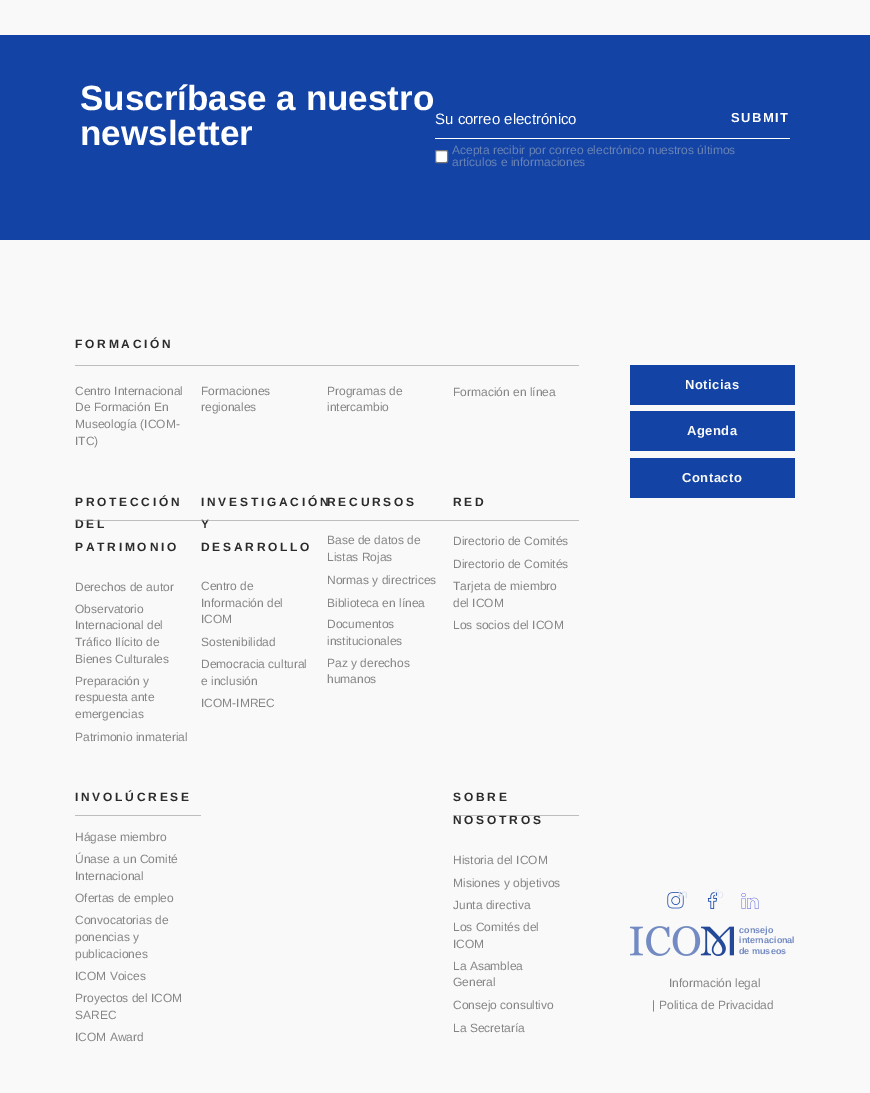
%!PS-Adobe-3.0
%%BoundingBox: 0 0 870 1093
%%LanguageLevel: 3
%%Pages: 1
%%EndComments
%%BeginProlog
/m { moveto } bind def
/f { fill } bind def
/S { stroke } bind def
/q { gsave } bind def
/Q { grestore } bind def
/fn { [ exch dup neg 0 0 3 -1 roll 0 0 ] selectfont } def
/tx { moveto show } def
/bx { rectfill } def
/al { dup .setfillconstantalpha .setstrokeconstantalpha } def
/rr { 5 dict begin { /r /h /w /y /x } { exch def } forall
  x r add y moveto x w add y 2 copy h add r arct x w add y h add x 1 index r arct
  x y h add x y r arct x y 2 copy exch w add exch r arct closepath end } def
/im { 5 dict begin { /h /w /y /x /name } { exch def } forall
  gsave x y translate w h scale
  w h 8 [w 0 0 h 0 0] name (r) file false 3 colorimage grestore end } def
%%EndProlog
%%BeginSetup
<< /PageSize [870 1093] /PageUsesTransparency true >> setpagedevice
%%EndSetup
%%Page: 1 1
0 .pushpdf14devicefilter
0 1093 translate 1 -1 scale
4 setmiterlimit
0.976 setgray
0 0 870 1093 bx
0.075 0.263 0.647 setrgbcolor
0 35 870 205 bx
/LiberationSans-Bold 35 fn
1 setgray
(Suscríbase a nuestro) 80 110 tx
(newsletter) 80 145 tx
435 138 355 1 bx
/LiberationSans-Regular 15 fn
(Su correo electrónico) 435 124 tx
435.5 150.5 12 12 1.5 rr q f Q
0.463 setgray
S
/LiberationSans-Regular 12 fn
0.408 0.51 0.706 setrgbcolor
(Acepta recibir por correo electrónico nuestros últimos) 452 154 tx
(artículos e informaciones) 452 166 tx
/LiberationSans-Bold 13 fn
1 setgray
731 122 m 1.5 0 (SUBMIT) ashow
/LiberationSans-Bold 12 fn
0.169 setgray
75 348 m 2.75 0 (FORMACIÓN) ashow
0.745 setgray
75 365 504 1 bx
/LiberationSans-Regular 12 fn
0.522 setgray
(Centro Internacional) 75 395 tx
(De Formación En) 75 411 tx
(Museología \(ICOM-) 75 428 tx
(ITC\)) 75 445 tx
(Formaciones) 201 395 tx
(regionales) 201 411 tx
(Programas de) 327 395 tx
(intercambio) 327 411 tx
(Formación en línea) 453 396 tx
/LiberationSans-Bold 12 fn
0.169 setgray
75 506 m 2.75 0 (PROTECCIÓN) ashow
75 528 m 2.75 0 (DEL) ashow
0.6 al
0.592 setgray
75 520 126 1 bx
1 al
0.169 setgray
75 551 m 2.75 0 (PATRIMONIO) ashow
/LiberationSans-Regular 12 fn
0.522 setgray
(Derechos de autor) 75 591 tx
(Observatorio) 75 613 tx
(Internacional del) 75 629 tx
(Tráfico Ilícito de) 75 646 tx
(Bienes Culturales) 75 663 tx
(Preparación y) 75 685 tx
(respuesta ante) 75 701 tx
(emergencias) 75 718 tx
(Patrimonio inmaterial) 75 741 tx
/LiberationSans-Bold 12 fn
0.169 setgray
201 506 m 2.75 0 (INVESTIGACIÓN) ashow
201 528 m 2.75 0 (Y) ashow
0.6 al
0.592 setgray
201 520 126 1 bx
1 al
0.169 setgray
201 551 m 2.75 0 (DESARROLLO) ashow
/LiberationSans-Regular 12 fn
0.522 setgray
(Centro de) 201 590 tx
(Información del) 201 607 tx
(ICOM) 201 623 tx
(Sostenibilidad) 201 646 tx
(Democracia cultural) 201 668 tx
(e inclusión) 201 685 tx
(ICOM-IMREC) 201 707 tx
/LiberationSans-Bold 12 fn
0.169 setgray
327 506 m 2.75 0 (RECURSOS) ashow
0.745 setgray
327 520 252 1 bx
/LiberationSans-Regular 12 fn
0.522 setgray
(Base de datos de) 327 544 tx
(Listas Rojas) 327 561 tx
(Normas y directrices) 327 584 tx
(Biblioteca en línea) 327 607 tx
(Documentos) 327 628 tx
(institucionales) 327 645 tx
(Paz y derechos) 327 667 tx
(humanos) 327 683 tx
/LiberationSans-Bold 12 fn
0.169 setgray
453 506 m 2.75 0 (RED) ashow
/LiberationSans-Regular 12 fn
0.522 setgray
(Directorio de Comités) 453 545 tx
(Directorio de Comités) 453 568 tx
(Tarjeta de miembro) 453 590 tx
(del ICOM) 453 607 tx
(Los socios del ICOM) 453 629 tx
/LiberationSans-Bold 12 fn
0.169 setgray
75 801 m 2.75 0 (INVOLÚCRESE) ashow
0.745 setgray
75 815 126 1 bx
/LiberationSans-Regular 12 fn
0.522 setgray
(Hágase miembro) 75 841 tx
(Únase a un Comité) 75 863 tx
(Internacional) 75 880 tx
(Ofertas de empleo) 75 902 tx
(Convocatorias de) 75 924 tx
(ponencias y) 75 941 tx
(publicaciones) 75 958 tx
(ICOM Voices) 75 980 tx
(Proyectos del ICOM) 75 1002 tx
(SAREC) 75 1019 tx
(ICOM Award) 75 1041 tx
/LiberationSans-Bold 12 fn
0.169 setgray
453 801 m 2.75 0 (SOBRE) ashow
453 824 m 2.75 0 (NOSOTROS) ashow
0.6 al
0.592 setgray
453 815 126 1 bx
/LiberationSans-Regular 12 fn
1 al
0.522 setgray
(Historia del ICOM) 453 864 tx
(Misiones y objetivos) 453 887 tx
(Junta directiva) 453 909 tx
(Los Comités del) 453 931 tx
(ICOM) 453 948 tx
(La Asamblea) 453 970 tx
(General) 453 986 tx
(Consejo consultivo) 453 1009 tx
(La Secretaría) 453 1032 tx
0.075 0.263 0.647 setrgbcolor
630 365 165 40 bx
/LiberationSans-Bold 13 fn
0.976 setgray
685 389 m 0.5 0 (Noticias) ashow
0.075 0.263 0.647 setrgbcolor
630 411 165 40 bx
0.976 setgray
687 435 m 0.5 0 (Agenda) ashow
0.075 0.263 0.647 setrgbcolor
630 458 165 40 bx
0.976 setgray
682 482 m 0.5 0 (Contacto) ashow
(image0.raw) 667 892 17 17 im
/LiberationSans-Regular 12 fn
0.851 0.878 0.929 setrgbcolor
(in) 678 898 tx
(image1.raw) 707 892 11 17 im
0.898 0.914 0.949 setrgbcolor
(fb) 714 898 tx
(image2.raw) 741 893 18 16 im
(image3.raw) 630 926 104 30 im
/LiberationSans-Bold 9 fn
0.451 0.545 0.761 setrgbcolor
(consejo) 739 933 tx
(internacional) 739 943 tx
(de museos) 739 954 tx
/LiberationSans-Regular 12 fn
0.522 setgray
(Información legal) 669 987 tx
(|) 652 1009 tx
(Politica de Privacidad) 659 1009 tx
.poppdf14devicefilter showpage
%%EOF
